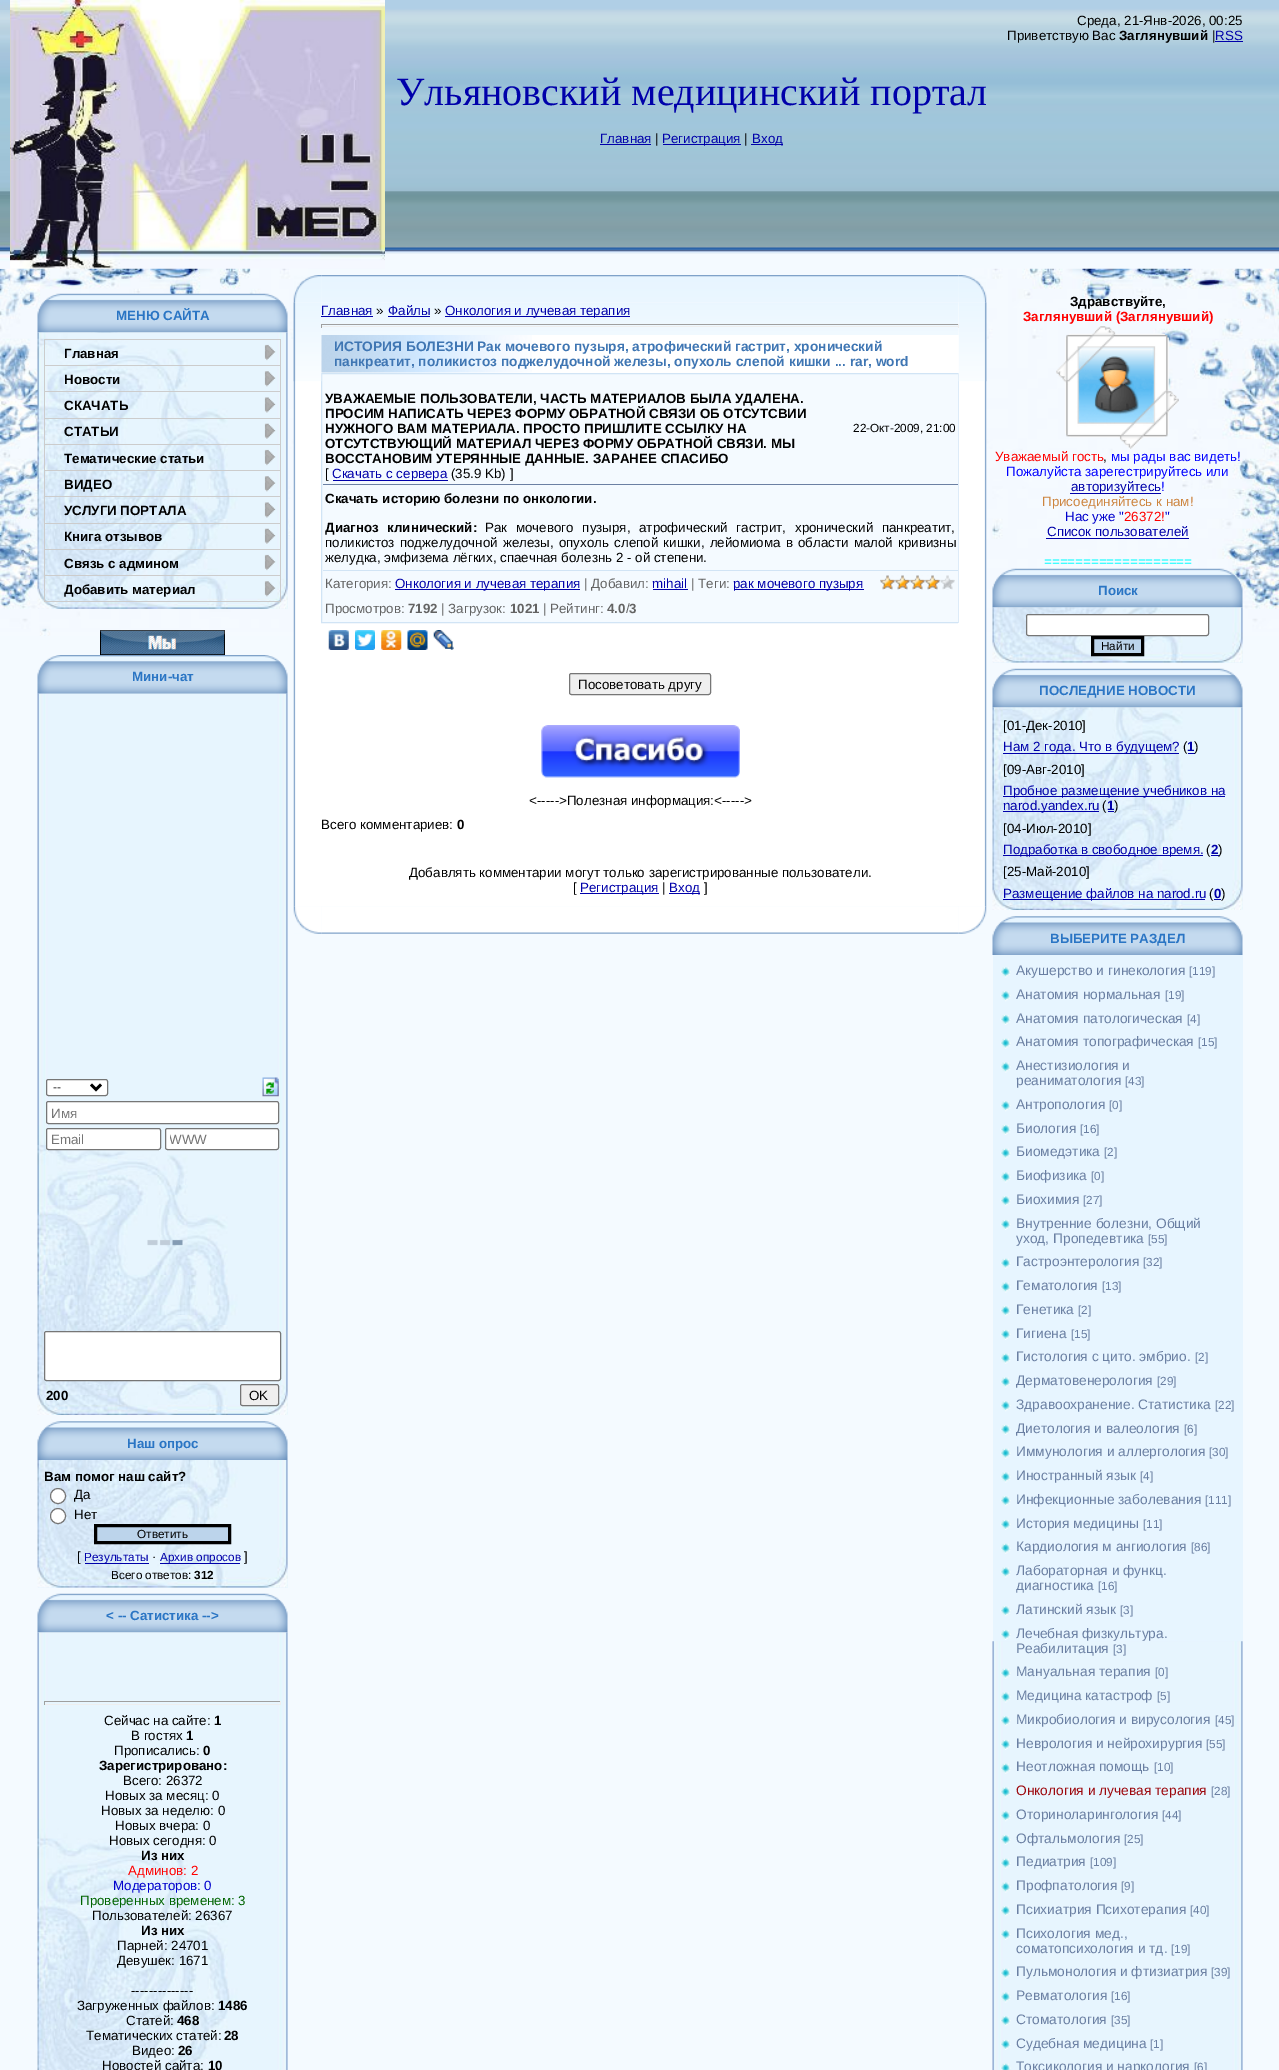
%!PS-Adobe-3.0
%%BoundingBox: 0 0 1279 2070
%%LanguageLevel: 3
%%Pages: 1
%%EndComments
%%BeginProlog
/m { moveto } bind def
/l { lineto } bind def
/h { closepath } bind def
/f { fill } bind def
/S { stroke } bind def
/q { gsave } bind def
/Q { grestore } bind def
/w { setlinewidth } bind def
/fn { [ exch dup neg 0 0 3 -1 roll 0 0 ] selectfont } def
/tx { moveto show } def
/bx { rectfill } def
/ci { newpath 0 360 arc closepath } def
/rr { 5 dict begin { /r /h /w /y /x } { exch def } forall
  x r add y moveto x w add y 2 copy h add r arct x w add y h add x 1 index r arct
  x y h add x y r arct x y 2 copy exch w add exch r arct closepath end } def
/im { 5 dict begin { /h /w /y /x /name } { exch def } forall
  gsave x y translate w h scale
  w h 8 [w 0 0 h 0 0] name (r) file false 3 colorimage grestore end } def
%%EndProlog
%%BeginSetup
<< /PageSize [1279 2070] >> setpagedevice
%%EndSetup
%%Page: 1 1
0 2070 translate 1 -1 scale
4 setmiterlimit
0.957 0.98 1 setrgbcolor
0 0 1279 2070 bx
(image0.raw) 385 0 894 254 im
(image1.raw) 0 0 385 269 im
(image4.raw) 0 268 308 368 im
(image2.raw) 0 0 10 269 im
/LiberationSans-Regular 13.35 fn
0 setgray
(Среда, 21-Янв-2026, 00:25) 1077 25 tx
(Приветствую Вас) 1007 40 tx
/LiberationSans-Bold 13.35 fn
(Заглянувший) 1119 40 tx
/LiberationSans-Regular 13.35 fn
(|) 1212 40 tx
0 0 0.667 setrgbcolor
(RSS) 1215 40 tx
1215 41 28 1 bx
/LiberationSerif-Regular 40 fn
(Ульяновский медицинский портал) 396 105 tx
/LiberationSans-Regular 13.35 fn
(Главная) 600 143 tx
600 144 51 1 bx
0 setgray
(|) 655 143 tx
0 0 0.667 setrgbcolor
663 144 78 1 bx
(Регистрация) 662 143 tx
0 setgray
(|) 744 143 tx
0 0 0.667 setrgbcolor
751 144 32 1 bx
(Вход) 752 143 tx
(image3.raw) 972 268 307 368 im
(image5.raw) 37 293 251 40 im
/LiberationSans-Bold 13.35 fn
0.165 0.459 0.769 setrgbcolor
(МЕНЮ САЙТА) 116 320 tx
0.906 0.961 1 setrgbcolor
38 333 250 276 bx
(image6.raw) 37 332 251 277 im
0.8 setgray
44 601 237 1 bx
(image7.raw) 264 344 12 17 im
44 339 237 1 bx
280 339 1 26 bx
44 339 1 26 bx
0 setgray
(Главная) 64 358 tx
(image8.raw) 264 371 12 16 im
0.8 setgray
44 365 237 1 bx
280 365 1 26 bx
44 365 1 26 bx
0 setgray
(Новости) 64 384 tx
(image9.raw) 264 397 12 16 im
0.8 setgray
44 391 237 1 bx
280 391 1 27 bx
44 391 1 27 bx
0 setgray
(СКАЧАТЬ) 64 410 tx
(image10.raw) 264 423 12 16 im
0.8 setgray
44 418 237 1 bx
280 418 1 26 bx
44 418 1 26 bx
0 setgray
(СТАТЬИ) 64 436 tx
(image7.raw) 264 449 12 17 im
0.8 setgray
44 444 237 1 bx
280 444 1 26 bx
44 444 1 26 bx
0 setgray
(Тематические статьи) 64 463 tx
(image8.raw) 264 476 12 16 im
0.8 setgray
44 470 237 1 bx
280 470 1 26 bx
44 470 1 26 bx
0 setgray
(ВИДЕО) 64 489 tx
(image9.raw) 264 502 12 16 im
0.8 setgray
44 496 237 1 bx
280 496 1 27 bx
44 496 1 27 bx
0 setgray
(УСЛУГИ ПОРТАЛА) 64 515 tx
(image10.raw) 264 528 12 16 im
0.8 setgray
44 523 237 1 bx
280 523 1 26 bx
44 523 1 26 bx
0 setgray
(Книга отзывов) 64 541 tx
(image7.raw) 264 554 12 17 im
0.8 setgray
44 549 237 1 bx
280 549 1 26 bx
44 549 1 26 bx
0 setgray
(Связь с админом) 64 568 tx
(image11.raw) 264 581 12 16 im
0.8 setgray
44 575 237 1 bx
280 575 1 26 bx
44 575 1 26 bx
0 setgray
(Добавить материал) 64 594 tx
(image12.raw) 100 630 125 25 im
(image13.raw) 37 655 251 39 im
0.165 0.459 0.769 setrgbcolor
(Мини-чат) 132 681 tx
0.906 0.961 1 setrgbcolor
287 694 1 721 bx
(image14.raw) 37 693 251 722 im
1 setgray
46.5 1079.5 61 16 2 rr q f Q
0.463 setgray
S
0 setgray
2.5 w
91 1084.5 m 96 1089.5 l 101 1084.5 l S
/LiberationSans-Regular 11.75 fn
(--) 53 1091 tx
(image15.raw) 262 1077 17 20 im
1 setgray
46.5 1101.5 232 22 2 rr q f Q
0.463 setgray
1 w
S
/LiberationSans-Regular 13.35 fn
0.459 setgray
(Имя) 51 1118 tx
1 setgray
46.5 1128.5 114 21 2 rr q f Q
0.463 setgray
S
0.459 setgray
(Email) 51 1144 tx
1 setgray
165.5 1128.5 113 21 2 rr q f Q
0.463 setgray
S
q
170 1131 104 15 rectclip
0.459 setgray
(WWW) 169 1144 tx
Q
(image16.raw) 147 1239 36 7 im
1 setgray
44.5 1331.5 236 49 2 rr q f Q
0.463 setgray
S
/LiberationSans-Bold 13.35 fn
0 setgray
(200) 46 1400 tx
0.937 setgray
240.5 1384.5 38 21 2 rr q f Q
0.463 setgray
S
/LiberationSans-Regular 13.35 fn
0 setgray
(OK) 249 1400 tx
(image17.raw) 37 1421 251 39 im
/LiberationSans-Bold 13.35 fn
0.165 0.459 0.769 setrgbcolor
(Наш опрос) 127 1448 tx
0.906 0.961 1 setrgbcolor
38 1460 250 128 bx
(image18.raw) 37 1460 251 128 im
0 setgray
(Вам помог наш сайт?) 44 1481 tx
1 setgray
58 1496 7.5 ci q f Q
0.463 setgray
S
/LiberationSans-Regular 13.35 fn
0 setgray
(Да) 74 1499 tx
1 setgray
58 1516 7.5 ci q f Q
0.463 setgray
S
0 setgray
(Нет) 74 1519 tx
0.737 0.831 0.922 setrgbcolor
95.5 1525.5 m 229.5 1525.5 l 229.5 1542.5 l 95.5 1542.5 l h q f Q
0 setgray
3 w
S
/LiberationSans-Regular 11.75 fn
(Ответить) 137 1538 tx
/LiberationSans-Regular 13.35 fn
([) 77 1561 tx
0 0 0.667 setrgbcolor
85 1563 64 1 bx
/LiberationSans-Regular 11.75 fn
(Результаты) 84 1561 tx
/LiberationSans-Regular 13.35 fn
0 setgray
(·) 152 1561 tx
0 0 0.667 setrgbcolor
160 1563 80 1 bx
/LiberationSans-Regular 11.75 fn
(Архив опросов) 160 1561 tx
/LiberationSans-Regular 13.35 fn
0 setgray
(]) 244 1561 tx
/LiberationSans-Regular 11.75 fn
(Всего ответов:) 111 1579 tx
/LiberationSans-Bold 11.75 fn
(312) 194 1579 tx
(image19.raw) 37 1593 251 40 im
/LiberationSans-Bold 13.35 fn
0.165 0.459 0.769 setrgbcolor
(< -- Сатистика -->) 106 1620 tx
0.906 0.961 1 setrgbcolor
287 1633 1 437 bx
(image20.raw) 37 1632 251 438 im
0.624 setgray
44 1701 237 1 bx
0.933 setgray
280 1701 1 4 bx
44 1704 237 1 bx
0.624 setgray
44 1701 1 4 bx
/LiberationSans-Regular 13.35 fn
0 setgray
(Сейчас на сайте:) 104 1725 tx
/LiberationSans-Bold 13.35 fn
(1) 214 1725 tx
/LiberationSans-Regular 13.35 fn
(В гостях) 131 1740 tx
/LiberationSans-Bold 13.35 fn
(1) 186 1740 tx
/LiberationSans-Regular 13.35 fn
(Прописались:) 114 1755 tx
/LiberationSans-Bold 13.35 fn
(0) 203 1755 tx
(Зарегистрировано:) 99 1770 tx
/LiberationSans-Regular 13.35 fn
(Всего: 26372) 123 1785 tx
(Новых за месяц: 0) 105 1800 tx
(Новых за неделю: 0) 101 1815 tx
(Новых вчера: 0) 115 1830 tx
(Новых сегодня: 0) 109 1845 tx
/LiberationSans-Bold 13.35 fn
(Из них) 141 1860 tx
/LiberationSans-Regular 13.35 fn
1 0 0 setrgbcolor
(Админов: 2) 128 1875 tx
0 0 0.804 setrgbcolor
(Модераторов: 0) 113 1890 tx
0 0.392 0 setrgbcolor
(Проверенных временем: 3) 80 1905 tx
0 setgray
(Пользователей: 26367) 92 1920 tx
/LiberationSans-Bold 13.35 fn
(Из них) 141 1935 tx
/LiberationSans-Regular 13.35 fn
(Парней: 24701) 117 1950 tx
(Девушек: 1671) 117 1965 tx
(--------------) 131 1995 tx
(Загруженных файлов:) 77 2010 tx
/LiberationSans-Bold 13.35 fn
(1486) 218 2010 tx
/LiberationSans-Regular 13.35 fn
(Статей:) 126 2025 tx
/LiberationSans-Bold 13.35 fn
(468) 177 2025 tx
/LiberationSans-Regular 13.35 fn
(Тематических статей:) 86 2040 tx
/LiberationSans-Bold 13.35 fn
(28) 224 2040 tx
/LiberationSans-Regular 13.35 fn
(Видео:) 132 2055 tx
/LiberationSans-Bold 13.35 fn
(26) 178 2055 tx
/LiberationSans-Regular 13.35 fn
(Новостей сайта:) 102 2070 tx
/LiberationSans-Bold 13.35 fn
(10) 208 2070 tx
(image22.raw) 321 275 638 28 im
(image24.raw) 293 302 28 605 im
(image21.raw) 293 275 29 28 im
1 setgray
321 303 638 603 bx
(image26.raw) 321 303 638 32 im
0.957 0.98 1 setrgbcolor
321.5 373.5 m 958.5 373.5 l 958.5 622.5 l 321.5 622.5 l h q f Q
0.82 0.894 0.961 setrgbcolor
1 w
S
(image36.raw) 958 302 29 605 im
(image23.raw) 958 275 29 28 im
(image27.raw) 321 335 211 38 im
(image25.raw) 293 302 29 80 im
/LiberationSans-Regular 13.35 fn
0 0 0.667 setrgbcolor
(Главная) 321 315 tx
321 316 52 1 bx
0 setgray
(») 376 315 tx
0 0 0.667 setrgbcolor
(Файлы) 388 315 tx
388 316 42 1 bx
0 setgray
(») 434 315 tx
0 0 0.667 setrgbcolor
445 316 185 1 bx
(Онкология и лучевая терапия) 445 315 tx
(image37.raw) 958 302 29 80 im
0.624 setgray
321 324 638 1 bx
0.933 setgray
958 324 1 4 bx
321 326 638 1 bx
0.624 setgray
321 324 1 4 bx
/LiberationSans-Bold 13.75 fn
0.247 0.463 0.702 setrgbcolor
(ИСТОРИЯ БОЛЕЗНИ Рак мочевого пузыря, атрофический гастрит, хронический) 334 351 tx
(панкреатит, поликистоз поджелудочной железы, опухоль слепой кишки ... rar, word) 334 366 tx
/LiberationSans-Bold 13.35 fn
0 setgray
(УВАЖАЕМЫЕ ПОЛЬЗОВАТЕЛИ, ЧАСТЬ МАТЕРИАЛОВ БЫЛА УДАЛЕНА.) 325 403 tx
(ПРОСИМ НАПИСАТЬ ЧЕРЕЗ ФОРМУ ОБРАТНОЙ СВЯЗИ ОБ ОТСУТСВИИ) 325 418 tx
(НУЖНОГО ВАМ МАТЕРИАЛА. ПРОСТО ПРИШЛИТЕ ССЫЛКУ НА) 325 433 tx
(ОТСУТСТВУЮЩИЙ МАТЕРИАЛ ЧЕРЕЗ ФОРМУ ОБРАТНОЙ СВЯЗИ. МЫ) 325 448 tx
(ВОССТАНОВИМ УТЕРЯННЫЕ ДАННЫЕ. ЗАРАНЕЕ СПАСИБО) 325 463 tx
/LiberationSans-Regular 13.35 fn
([) 325 478 tx
0 0 0.667 setrgbcolor
333 480 115 1 bx
(Скачать с сервера) 332 478 tx
0 setgray
(\(35.9 Kb\) ]) 451 478 tx
/LiberationSans-Regular 11.75 fn
(22-Окт-2009, 21:00) 853 432 tx
0.42 0.502 0.639 setrgbcolor
323 484 635 1 bx
/LiberationSans-Bold 13.35 fn
0 setgray
(Скачать историю болезни по онкологии.) 325 503 tx
325 532 m 5 0 32 (Диагноз клинический:) widthshow
/LiberationSans-Regular 13.35 fn
485 532 m 5 0 32 (Рак мочевого пузыря, атрофический гастрит, хронический панкреатит,) widthshow
325 547 m 1.5 0 32 (поликистоз поджелудочной железы, опухоль слепой кишки, лейомиома в области малой кривизны) widthshow
(желудка, эмфизема лёгких, спаечная болезнь 2 - ой степени.) 325 562 tx
0.82 0.894 0.961 setrgbcolor
323 570 635 1 bx
0.388 setgray
(Категория:) 325 588 tx
0 0 0.667 setrgbcolor
395 589 185 1 bx
(Онкология и лучевая терапия) 395 588 tx
0.388 setgray
(| Добавил:) 584 588 tx
0 0 0.667 setrgbcolor
(mihail) 652 588 tx
653 589 35 1 bx
0.388 setgray
(| Теги:) 691 588 tx
0 0 0.667 setrgbcolor
734 589 130 1 bx
(рак мочевого пузыря) 733 588 tx
(image28.raw) 880 575 75 15 im
(image29.raw) 880 575 60 15 im
0.388 setgray
(Просмотров:) 325 613 tx
/LiberationSans-Bold 13.35 fn
(7192) 408 613 tx
/LiberationSans-Regular 13.35 fn
(| Загрузок:) 441 613 tx
/LiberationSans-Bold 13.35 fn
(1021) 510 613 tx
/LiberationSans-Regular 13.35 fn
(| Рейтинг:) 543 613 tx
/LiberationSans-Bold 13.35 fn
(4.0) 607 613 tx
/LiberationSans-Regular 13.35 fn
(/) 626 613 tx
/LiberationSans-Bold 13.35 fn
(3) 629 613 tx
(image30.raw) 328 630 21 20 im
(image31.raw) 355 630 20 20 im
(image32.raw) 381 630 21 20 im
(image33.raw) 407 630 21 20 im
(image34.raw) 433 630 21 20 im
0.937 setgray
569.5 673.5 141 21 2 rr q f Q
0.463 setgray
S
/LiberationSans-Regular 13.35 fn
0 setgray
(Посоветовать другу) 578 689 tx
(image35.raw) 541 725 199 53 im
(<----->Полезная информация:<----->) 529 805 tx
(Всего комментариев:) 321 829 tx
/LiberationSans-Bold 13.35 fn
(0) 457 829 tx
/LiberationSans-Regular 13.35 fn
(Добавлять комментарии могут только зарегистрированные пользователи.) 409 877 tx
([) 573 892 tx
0 0 0.667 setrgbcolor
580 893 79 1 bx
(Регистрация) 580 892 tx
0 setgray
(|) 662 892 tx
0 0 0.667 setrgbcolor
669 893 31 1 bx
(Вход) 669 892 tx
0 setgray
(]) 704 892 tx
(image39.raw) 321 906 638 28 im
(image38.raw) 293 906 29 28 im
(image40.raw) 958 906 29 28 im
/LiberationSans-Bold 13.35 fn
(Здравствуйте,) 1070 306 tx
1 0 0 setrgbcolor
(Заглянувший \(Заглянувший\)) 1023 321 tx
(image41.raw) 1056 326 123 123 im
/LiberationSans-Regular 13.35 fn
(Уважаемый гость) 995 461 tx
0 setgray
(,) 1103 461 tx
0 0 1 setrgbcolor
(мы рады вас видеть!) 1111 461 tx
(Пожалуйста зарегестрируйтесь или) 1006 476 tx
0 0 0.667 setrgbcolor
1070 493 91 1 bx
(авторизуйтесь) 1071 491 tx
0 0 1 setrgbcolor
(!) 1161 491 tx
0.804 0.522 0.247 setrgbcolor
(Присоединяйтесь к нам!) 1042 506 tx
0 0 0.804 setrgbcolor
(Нас уже ") 1065 521 tx
1 0 0 setrgbcolor
(26372!) 1124 521 tx
0 0 0.804 setrgbcolor
(") 1165 521 tx
0 0 0.667 setrgbcolor
(Список пользователей) 1047 536 tx
1046 538 143 1 bx
0 1 1 setrgbcolor
(===================) 1044 566 tx
(image42.raw) 992 568 251 40 im
/LiberationSans-Bold 13.35 fn
0.165 0.459 0.769 setrgbcolor
(Поиск) 1098 595 tx
0.906 0.961 1 setrgbcolor
993 608 250 55 bx
(image43.raw) 992 607 251 56 im
1 setgray
1026.5 614.5 182 21 2 rr q f Q
0.463 setgray
S
0.737 0.831 0.922 setrgbcolor
1092.5 637.5 m 1142.5 637.5 l 1142.5 654.5 l 1092.5 654.5 l h q f Q
0 setgray
3 w
S
/LiberationSans-Regular 11.75 fn
(Найти) 1101 650 tx
(image44.raw) 992 668 251 40 im
/LiberationSans-Bold 13.35 fn
0.165 0.459 0.769 setrgbcolor
(ПОСЛЕДНИЕ НОВОСТИ) 1039 695 tx
0.906 0.961 1 setrgbcolor
1242 708 1 202 bx
(image45.raw) 992 707 251 203 im
/LiberationSans-Regular 13.35 fn
0 setgray
([01-Дек-2010]) 1003 730 tx
0 0 0.667 setrgbcolor
1003 753 176 1 bx
(Нам 2 года. Что в будущем?) 1003 751 tx
0 setgray
(\() 1183 751 tx
/LiberationSans-Bold 13.35 fn
0 0 0.667 setrgbcolor
(1) 1187 751 tx
1188 753 7 1 bx
/LiberationSans-Regular 13.35 fn
0 setgray
(\)) 1194 751 tx
([09-Авг-2010]) 1003 774 tx
0 0 0.667 setrgbcolor
1003 796 222 1 bx
(Пробное размещение учебников на) 1003 795 tx
1003 811 96 1 bx
(narod.yandex.ru) 1003 810 tx
0 setgray
(\() 1102 810 tx
/LiberationSans-Bold 13.35 fn
0 0 0.667 setrgbcolor
(1) 1107 810 tx
/LiberationSans-Regular 13.35 fn
0 setgray
(\)) 1114 810 tx
0 0 0.667 setrgbcolor
1108 811 6 1 bx
0 setgray
([04-Июл-2010]) 1003 833 tx
0 0 0.667 setrgbcolor
1003 855 200 1 bx
(Подработка в свободное время.) 1003 854 tx
0 setgray
(\() 1206 854 tx
0 0 0.667 setrgbcolor
1211 855 8 1 bx
/LiberationSans-Bold 13.35 fn
(2) 1211 854 tx
/LiberationSans-Regular 13.35 fn
0 setgray
(\)) 1218 854 tx
([25-Май-2010]) 1003 876 tx
0 0 0.667 setrgbcolor
1003 899 202 1 bx
(Размещение файлов на narod.ru) 1003 898 tx
0 setgray
(\() 1209 898 tx
0 0 0.667 setrgbcolor
1214 899 7 1 bx
/LiberationSans-Bold 13.35 fn
(0) 1214 898 tx
/LiberationSans-Regular 13.35 fn
0 setgray
(\)) 1221 898 tx
(image46.raw) 992 916 251 39 im
/LiberationSans-Bold 13.35 fn
0.165 0.459 0.769 setrgbcolor
(ВЫБЕРИТЕ РАЗДЕЛ) 1050 943 tx
0.906 0.961 1 setrgbcolor
993 955 250 1115 bx
(image47.raw) 992 1641 251 429 im
(image48.raw) 1000 967 11 11 im
/LiberationSans-Regular 13.75 fn
0.42 0.502 0.639 setrgbcolor
(Акушерство и гинекология) 1016 975 tx
/LiberationSans-Regular 11.75 fn
([119]) 1189 975 tx
(image49.raw) 1000 990 11 12 im
/LiberationSans-Regular 13.75 fn
(Анатомия нормальная) 1016 999 tx
/LiberationSans-Regular 11.75 fn
([19]) 1165 999 tx
(image50.raw) 1000 1014 11 11 im
/LiberationSans-Regular 13.75 fn
(Анатомия патологическая) 1016 1023 tx
/LiberationSans-Regular 11.75 fn
([4]) 1187 1023 tx
(image51.raw) 1000 1038 11 11 im
/LiberationSans-Regular 13.75 fn
(Анатомия топографическая) 1016 1046 tx
/LiberationSans-Regular 11.75 fn
([15]) 1198 1046 tx
(image48.raw) 1000 1062 11 11 im
/LiberationSans-Regular 13.75 fn
(Анестизиология и) 1016 1070 tx
(реаниматология) 1016 1085 tx
/LiberationSans-Regular 11.75 fn
([43]) 1125 1085 tx
(image49.raw) 1000 1100 11 12 im
/LiberationSans-Regular 13.75 fn
(Антропология) 1016 1109 tx
/LiberationSans-Regular 11.75 fn
([0]) 1109 1109 tx
(image50.raw) 1000 1124 11 11 im
/LiberationSans-Regular 13.75 fn
(Биология) 1016 1133 tx
/LiberationSans-Regular 11.75 fn
([16]) 1080 1133 tx
(image51.raw) 1000 1148 11 11 im
/LiberationSans-Regular 13.75 fn
(Биомедэтика) 1016 1156 tx
/LiberationSans-Regular 11.75 fn
([2]) 1104 1156 tx
(image52.raw) 1000 1172 11 11 im
/LiberationSans-Regular 13.75 fn
(Биофизика) 1016 1180 tx
/LiberationSans-Regular 11.75 fn
([0]) 1091 1180 tx
(image49.raw) 1000 1195 11 12 im
/LiberationSans-Regular 13.75 fn
(Биохимия) 1016 1204 tx
/LiberationSans-Regular 11.75 fn
([27]) 1083 1204 tx
(image50.raw) 1000 1219 11 11 im
/LiberationSans-Regular 13.75 fn
(Внутренние болезни, Общий) 1016 1228 tx
(уход, Пропедевтика) 1016 1243 tx
/LiberationSans-Regular 11.75 fn
([55]) 1148 1243 tx
(image51.raw) 1000 1258 11 11 im
/LiberationSans-Regular 13.75 fn
(Гастроэнтерология) 1016 1266 tx
/LiberationSans-Regular 11.75 fn
([32]) 1143 1266 tx
(image48.raw) 1000 1282 11 11 im
/LiberationSans-Regular 13.75 fn
(Гематология) 1016 1290 tx
/LiberationSans-Regular 11.75 fn
([13]) 1102 1290 tx
(image49.raw) 1000 1305 11 12 im
/LiberationSans-Regular 13.75 fn
(Генетика) 1016 1314 tx
/LiberationSans-Regular 11.75 fn
([2]) 1078 1314 tx
(image50.raw) 1000 1329 11 11 im
/LiberationSans-Regular 13.75 fn
(Гигиена) 1016 1338 tx
/LiberationSans-Regular 11.75 fn
([15]) 1071 1338 tx
(image51.raw) 1000 1353 11 11 im
/LiberationSans-Regular 13.75 fn
(Гистология с цито. эмбрио.) 1016 1361 tx
/LiberationSans-Regular 11.75 fn
([2]) 1195 1361 tx
(image48.raw) 1000 1377 11 11 im
/LiberationSans-Regular 13.75 fn
(Дерматовенерология) 1016 1385 tx
/LiberationSans-Regular 11.75 fn
([29]) 1157 1385 tx
(image49.raw) 1000 1400 11 12 im
/LiberationSans-Regular 13.75 fn
(Здравоохранение. Статистика) 1016 1409 tx
/LiberationSans-Regular 11.75 fn
([22]) 1215 1409 tx
(image50.raw) 1000 1424 11 11 im
/LiberationSans-Regular 13.75 fn
(Диетология и валеология) 1016 1433 tx
/LiberationSans-Regular 11.75 fn
([6]) 1184 1433 tx
(image51.raw) 1000 1448 11 11 im
/LiberationSans-Regular 13.75 fn
(Иммунология и аллергология) 1016 1456 tx
/LiberationSans-Regular 11.75 fn
([30]) 1209 1456 tx
(image48.raw) 1000 1472 11 11 im
/LiberationSans-Regular 13.75 fn
(Иностранный язык) 1016 1480 tx
/LiberationSans-Regular 11.75 fn
([4]) 1140 1480 tx
(image49.raw) 1000 1495 11 12 im
/LiberationSans-Regular 13.75 fn
(Инфекционные заболевания) 1016 1504 tx
/LiberationSans-Regular 11.75 fn
([111]) 1205 1504 tx
(image50.raw) 1000 1519 11 11 im
/LiberationSans-Regular 13.75 fn
(История медицины) 1016 1528 tx
/LiberationSans-Regular 11.75 fn
([11]) 1143 1528 tx
(image51.raw) 1000 1543 11 11 im
/LiberationSans-Regular 13.75 fn
(Кардиология м ангиология) 1016 1551 tx
/LiberationSans-Regular 11.75 fn
([86]) 1191 1551 tx
(image48.raw) 1000 1567 11 11 im
/LiberationSans-Regular 13.75 fn
(Лабораторная и функц.) 1016 1575 tx
(диагностика) 1016 1590 tx
/LiberationSans-Regular 11.75 fn
([16]) 1098 1590 tx
(image49.raw) 1000 1605 11 12 im
/LiberationSans-Regular 13.75 fn
(Латинский язык) 1016 1614 tx
/LiberationSans-Regular 11.75 fn
([3]) 1120 1614 tx
(image50.raw) 1000 1629 11 11 im
/LiberationSans-Regular 13.75 fn
(Лечебная физкультура.) 1016 1638 tx
(Реабилитация) 1016 1653 tx
/LiberationSans-Regular 11.75 fn
([3]) 1113 1653 tx
(image53.raw) 1000 1668 11 11 im
/LiberationSans-Regular 13.75 fn
(Мануальная терапия) 1016 1676 tx
/LiberationSans-Regular 11.75 fn
([0]) 1155 1676 tx
(image54.raw) 1000 1692 11 11 im
/LiberationSans-Regular 13.75 fn
(Медицина катастроф) 1016 1700 tx
/LiberationSans-Regular 11.75 fn
([5]) 1157 1700 tx
(image55.raw) 1000 1716 11 11 im
/LiberationSans-Regular 13.75 fn
(Микробиология и вирусология) 1016 1724 tx
/LiberationSans-Regular 11.75 fn
([45]) 1215 1724 tx
(image56.raw) 1000 1739 11 11 im
/LiberationSans-Regular 13.75 fn
(Неврология и нейрохирургия) 1016 1748 tx
/LiberationSans-Regular 11.75 fn
([55]) 1206 1748 tx
(image53.raw) 1000 1763 11 11 im
/LiberationSans-Regular 13.75 fn
(Неотложная помощь) 1016 1771 tx
/LiberationSans-Regular 11.75 fn
([10]) 1154 1771 tx
(image54.raw) 1000 1787 11 11 im
/LiberationSans-Regular 13.75 fn
0.616 0.031 0.051 setrgbcolor
(Онкология и лучевая терапия) 1016 1795 tx
/LiberationSans-Regular 11.75 fn
0.42 0.502 0.639 setrgbcolor
([28]) 1211 1795 tx
(image55.raw) 1000 1811 11 11 im
/LiberationSans-Regular 13.75 fn
(Оториноларингология) 1016 1819 tx
/LiberationSans-Regular 11.75 fn
([44]) 1162 1819 tx
(image56.raw) 1000 1834 11 11 im
/LiberationSans-Regular 13.75 fn
(Офтальмология) 1016 1843 tx
/LiberationSans-Regular 11.75 fn
([25]) 1124 1843 tx
(image57.raw) 1000 1858 11 11 im
/LiberationSans-Regular 13.75 fn
(Педиатрия) 1016 1866 tx
/LiberationSans-Regular 11.75 fn
([109]) 1090 1866 tx
(image54.raw) 1000 1882 11 11 im
/LiberationSans-Regular 13.75 fn
(Профпатология) 1016 1890 tx
/LiberationSans-Regular 11.75 fn
([9]) 1121 1890 tx
(image55.raw) 1000 1906 11 11 im
/LiberationSans-Regular 13.75 fn
(Психиатрия Психотерапия) 1016 1914 tx
/LiberationSans-Regular 11.75 fn
([40]) 1190 1914 tx
(image56.raw) 1000 1929 11 11 im
/LiberationSans-Regular 13.75 fn
(Психология мед.,) 1016 1938 tx
(соматопсихология и тд.) 1016 1953 tx
/LiberationSans-Regular 11.75 fn
([19]) 1171 1953 tx
(image53.raw) 1000 1968 11 11 im
/LiberationSans-Regular 13.75 fn
(Пульмонология и фтизиатрия) 1016 1976 tx
/LiberationSans-Regular 11.75 fn
([39]) 1211 1976 tx
(image54.raw) 1000 1992 11 11 im
/LiberationSans-Regular 13.75 fn
(Ревматология) 1016 2000 tx
/LiberationSans-Regular 11.75 fn
([16]) 1111 2000 tx
(image55.raw) 1000 2016 11 11 im
/LiberationSans-Regular 13.75 fn
(Стоматология) 1016 2024 tx
/LiberationSans-Regular 11.75 fn
([35]) 1111 2024 tx
(image56.raw) 1000 2039 11 11 im
/LiberationSans-Regular 13.75 fn
(Судебная медицина) 1016 2048 tx
/LiberationSans-Regular 11.75 fn
([1]) 1150 2048 tx
(image58.raw) 1000 2063 11 7 im
/LiberationSans-Regular 13.75 fn
(Токсикология и наркология) 1016 2071 tx
/LiberationSans-Regular 11.75 fn
([6]) 1194 2071 tx
showpage
%%EOF
